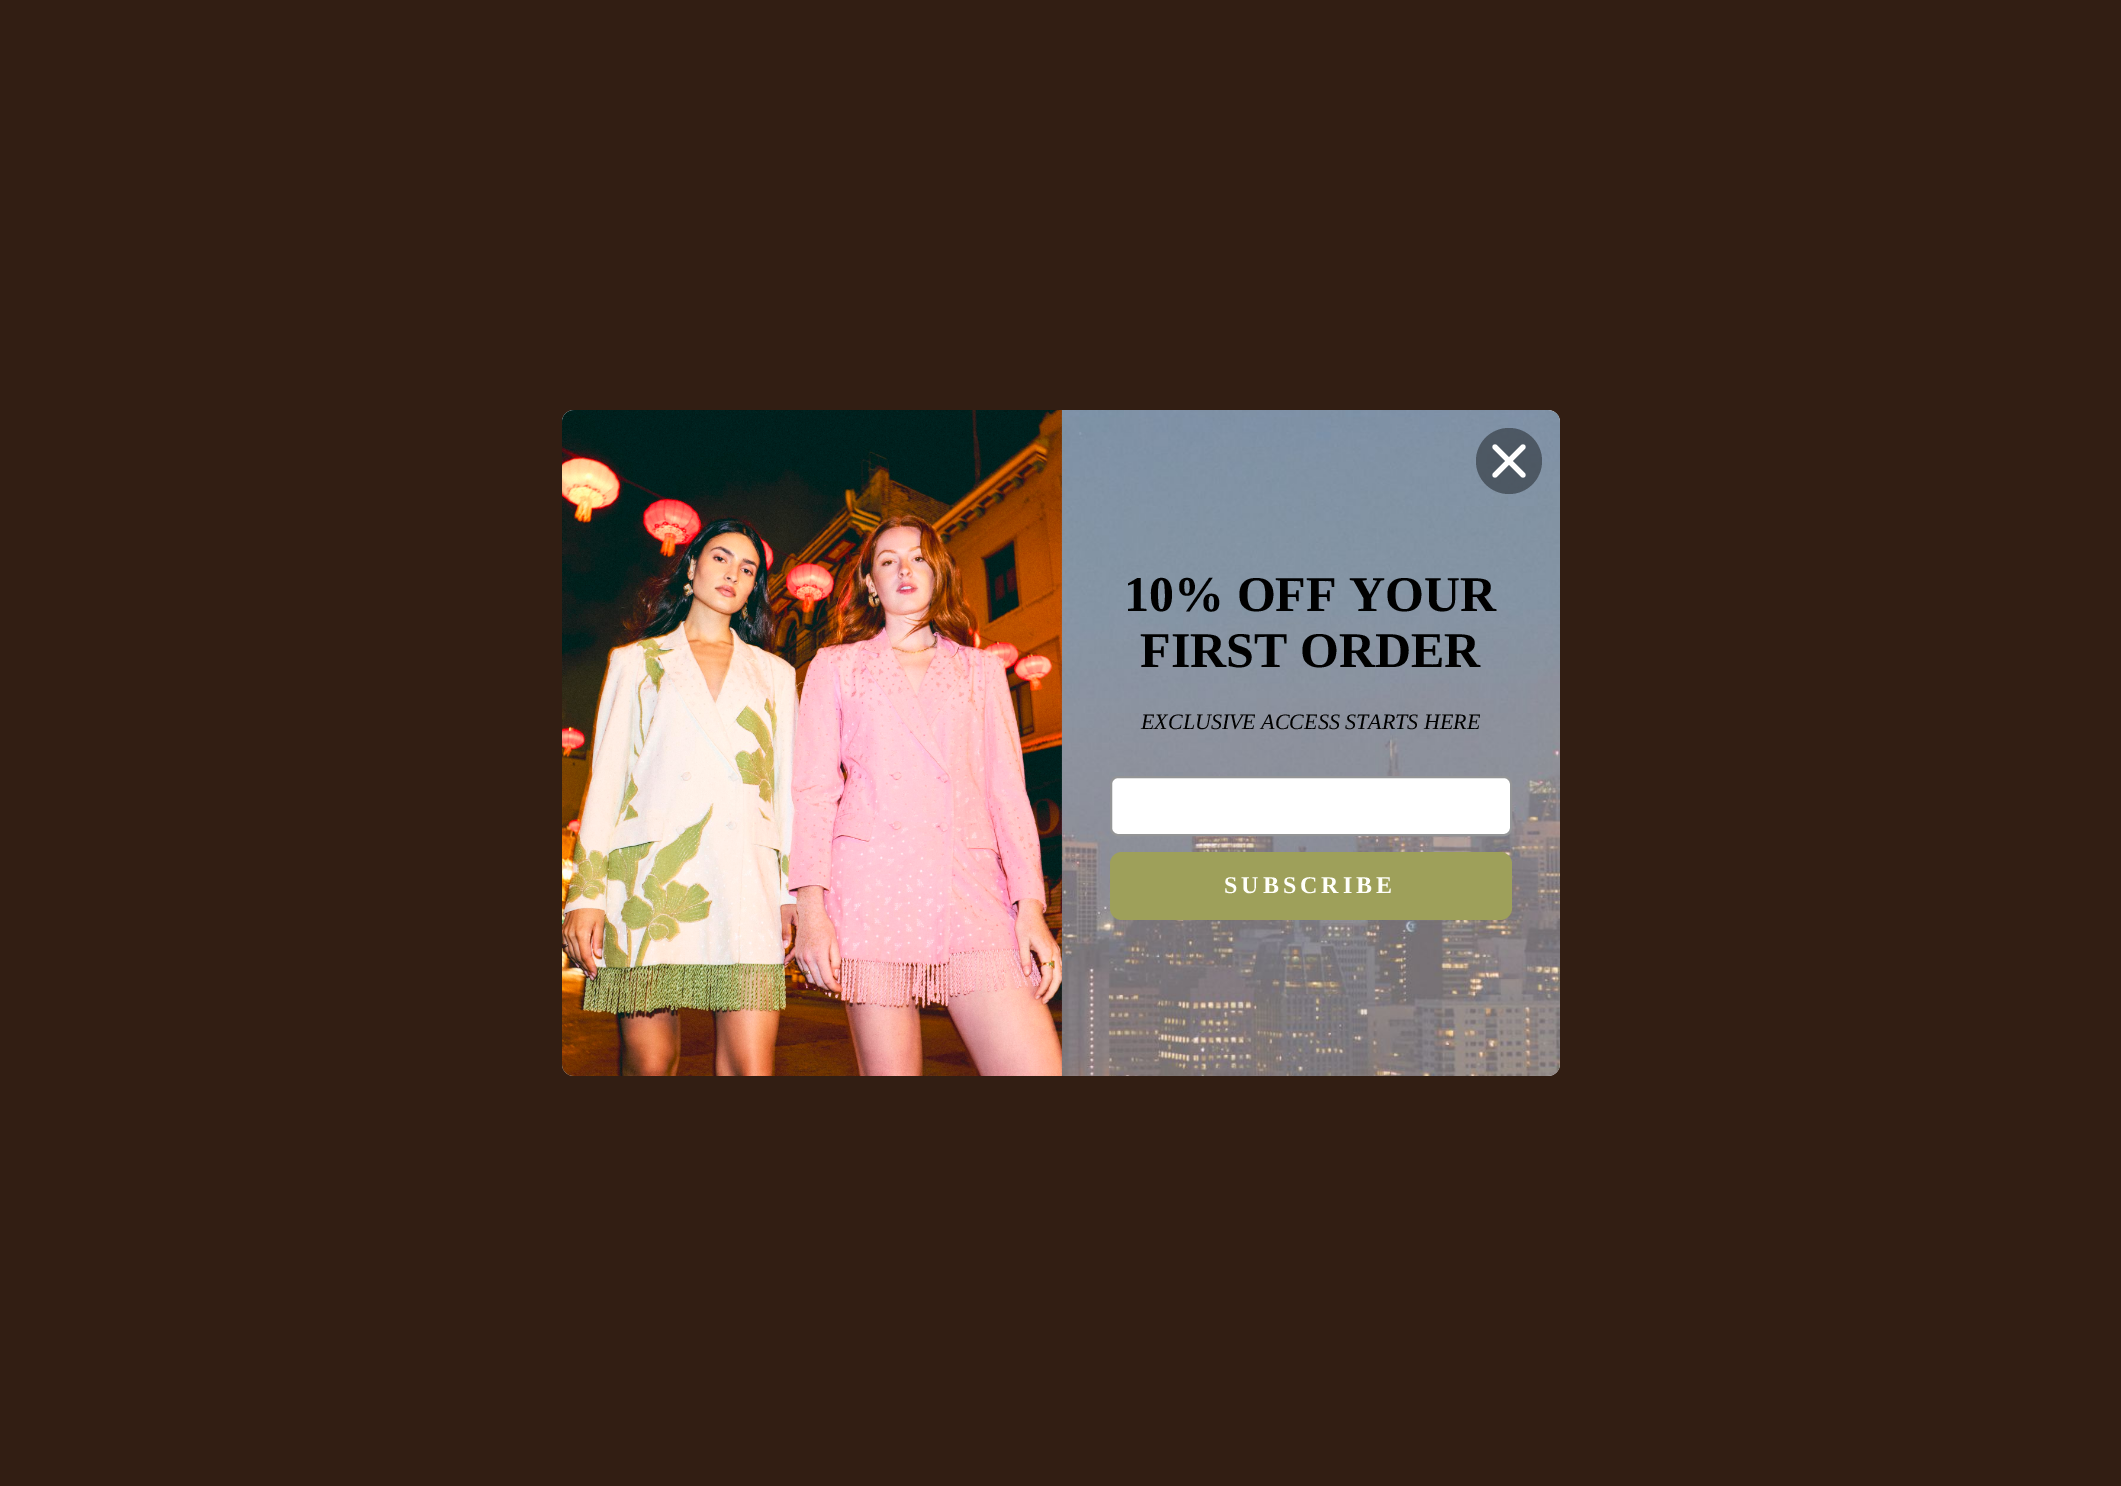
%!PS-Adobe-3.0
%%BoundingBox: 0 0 2121 1486
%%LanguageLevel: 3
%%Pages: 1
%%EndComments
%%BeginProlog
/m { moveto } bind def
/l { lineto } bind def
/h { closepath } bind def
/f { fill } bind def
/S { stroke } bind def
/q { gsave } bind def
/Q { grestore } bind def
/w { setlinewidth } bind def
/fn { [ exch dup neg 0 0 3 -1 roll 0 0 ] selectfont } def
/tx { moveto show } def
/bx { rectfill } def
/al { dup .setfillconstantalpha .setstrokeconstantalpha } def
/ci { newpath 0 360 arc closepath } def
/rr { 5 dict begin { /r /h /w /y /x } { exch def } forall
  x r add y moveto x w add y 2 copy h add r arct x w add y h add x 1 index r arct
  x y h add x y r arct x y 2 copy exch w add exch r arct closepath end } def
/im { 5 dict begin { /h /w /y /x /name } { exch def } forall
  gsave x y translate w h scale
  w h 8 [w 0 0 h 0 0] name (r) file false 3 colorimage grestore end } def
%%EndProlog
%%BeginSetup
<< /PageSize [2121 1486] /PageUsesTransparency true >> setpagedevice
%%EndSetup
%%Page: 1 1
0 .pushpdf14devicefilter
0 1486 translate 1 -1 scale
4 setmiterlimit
0.196 0.118 0.075 setrgbcolor
0 0 2121 1486 bx
(image0.raw) 562 410 998 666 im
0.7 al
0.216 0.247 0.278 setrgbcolor
1509 461 33 ci f
1 al
1 setgray
5.2 w
1 setlinecap
1 setlinejoin
1495 447 m 1523 475 l 1495 475 m 1523 447 l h S
(image1.raw) 562 410 500 666 im
/LiberationSerif-Bold 50 fn
0 setgray
(10% OFF YOUR) 1124 611 tx
(FIRST ORDER) 1140 667 tx
/LiberationSerif-Italic 22 fn
(EXCLUSIVE ACCESS STARTS HERE) 1141 729 tx
1 setgray
1111 777 400 58 7 rr q f Q
0.58 0.584 0.588 setrgbcolor
2 w
0 setlinecap
0 setlinejoin
S
0.62 0.627 0.353 setrgbcolor
1110 852 402 68 12 rr f
/LiberationSerif-Bold 24 fn
1 1 0.98 setrgbcolor
1224 893 m 4 0 (SUBSCRIBE) ashow
.poppdf14devicefilter showpage
%%EOF
